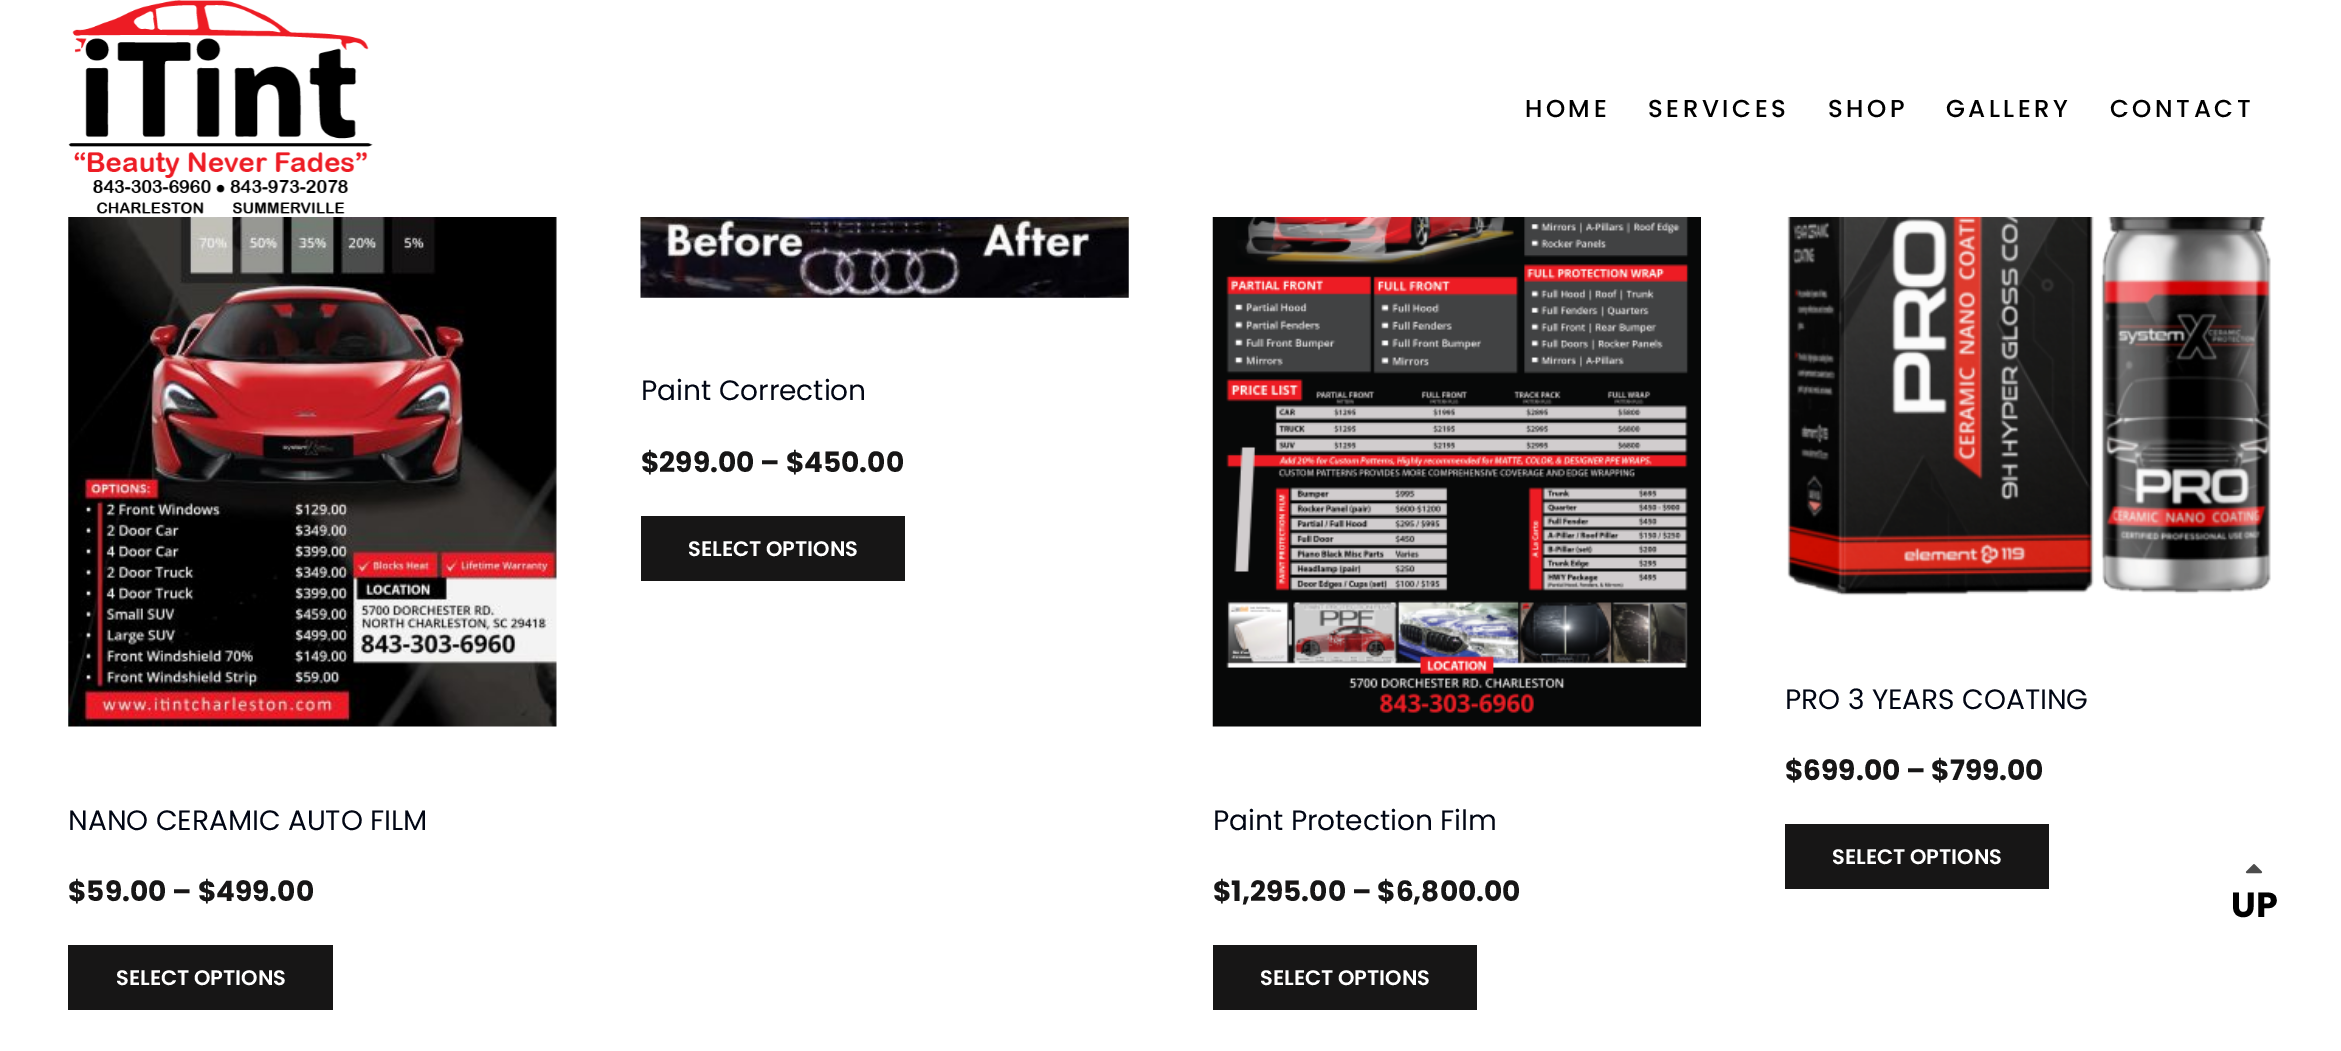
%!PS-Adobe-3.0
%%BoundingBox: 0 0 2341 1051
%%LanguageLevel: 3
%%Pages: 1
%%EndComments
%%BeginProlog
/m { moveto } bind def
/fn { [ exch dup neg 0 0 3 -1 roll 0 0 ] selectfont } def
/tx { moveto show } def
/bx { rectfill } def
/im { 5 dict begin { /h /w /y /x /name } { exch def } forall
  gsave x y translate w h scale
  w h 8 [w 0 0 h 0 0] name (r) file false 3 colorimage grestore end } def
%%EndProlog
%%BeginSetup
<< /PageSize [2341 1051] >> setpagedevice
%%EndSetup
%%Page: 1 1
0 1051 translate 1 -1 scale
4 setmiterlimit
1 setgray
0 0 2341 1051 bx
(image0.raw) 68 0 305 214 im
/Poppins-Medium 24.5 fn
0 setgray
1525 117 m 3.5 0 (HOME) ashow
1648 117 m 3.5 0 (SERVICES) ashow
1828 117 m 3.5 0 (SHOP) ashow
1946 117 m 3.5 0 (GALLERY) ashow
2110 117 m 3.5 0 (CONTACT) ashow
(image1.raw) 640 217 489 81 im
/Poppins-Regular 28 fn
0.004 0.024 0.078 setrgbcolor
(Paint Correction) 641 400 tx
/Poppins-Bold 28 fn
0.09 0.086 0.086 setrgbcolor
($299.00 – $450.00) 641 472 tx
641 516 264 65 bx
/Poppins-SemiBold 21 fn
1 setgray
(SELECT OPTIONS) 688 556 tx
(image2.raw) 1787 217 484 379 im
/Poppins-Regular 28 fn
0.004 0.024 0.078 setrgbcolor
(PRO 3 YEARS COATING) 1785 709 tx
/Poppins-Bold 28 fn
0.09 0.086 0.086 setrgbcolor
($699.00 – $799.00) 1785 780 tx
1785 824 264 65 bx
/Poppins-SemiBold 21 fn
1 setgray
(SELECT OPTIONS) 1832 864 tx
(image3.raw) 68 217 489 510 im
/Poppins-Regular 28 fn
0.004 0.024 0.078 setrgbcolor
(NANO CERAMIC AUTO FILM) 68 830 tx
/Poppins-Bold 28 fn
0.09 0.086 0.086 setrgbcolor
($59.00 – $499.00) 68 901 tx
68 945 265 65 bx
/Poppins-SemiBold 21 fn
1 setgray
(SELECT OPTIONS) 116 985 tx
(image4.raw) 1212 217 489 510 im
/Poppins-Regular 28 fn
0.004 0.024 0.078 setrgbcolor
(Paint Protection Film) 1213 830 tx
/Poppins-Bold 28 fn
0.09 0.086 0.086 setrgbcolor
($1,295.00 – $6,800.00) 1213 901 tx
1213 945 264 65 bx
/Poppins-SemiBold 21 fn
1 setgray
(SELECT OPTIONS) 1260 985 tx
(image5.raw) 2245 864 18 10 im
/Poppins-Bold 35 fn
0 setgray
(UP) 2231 917 tx
showpage
%%EOF
